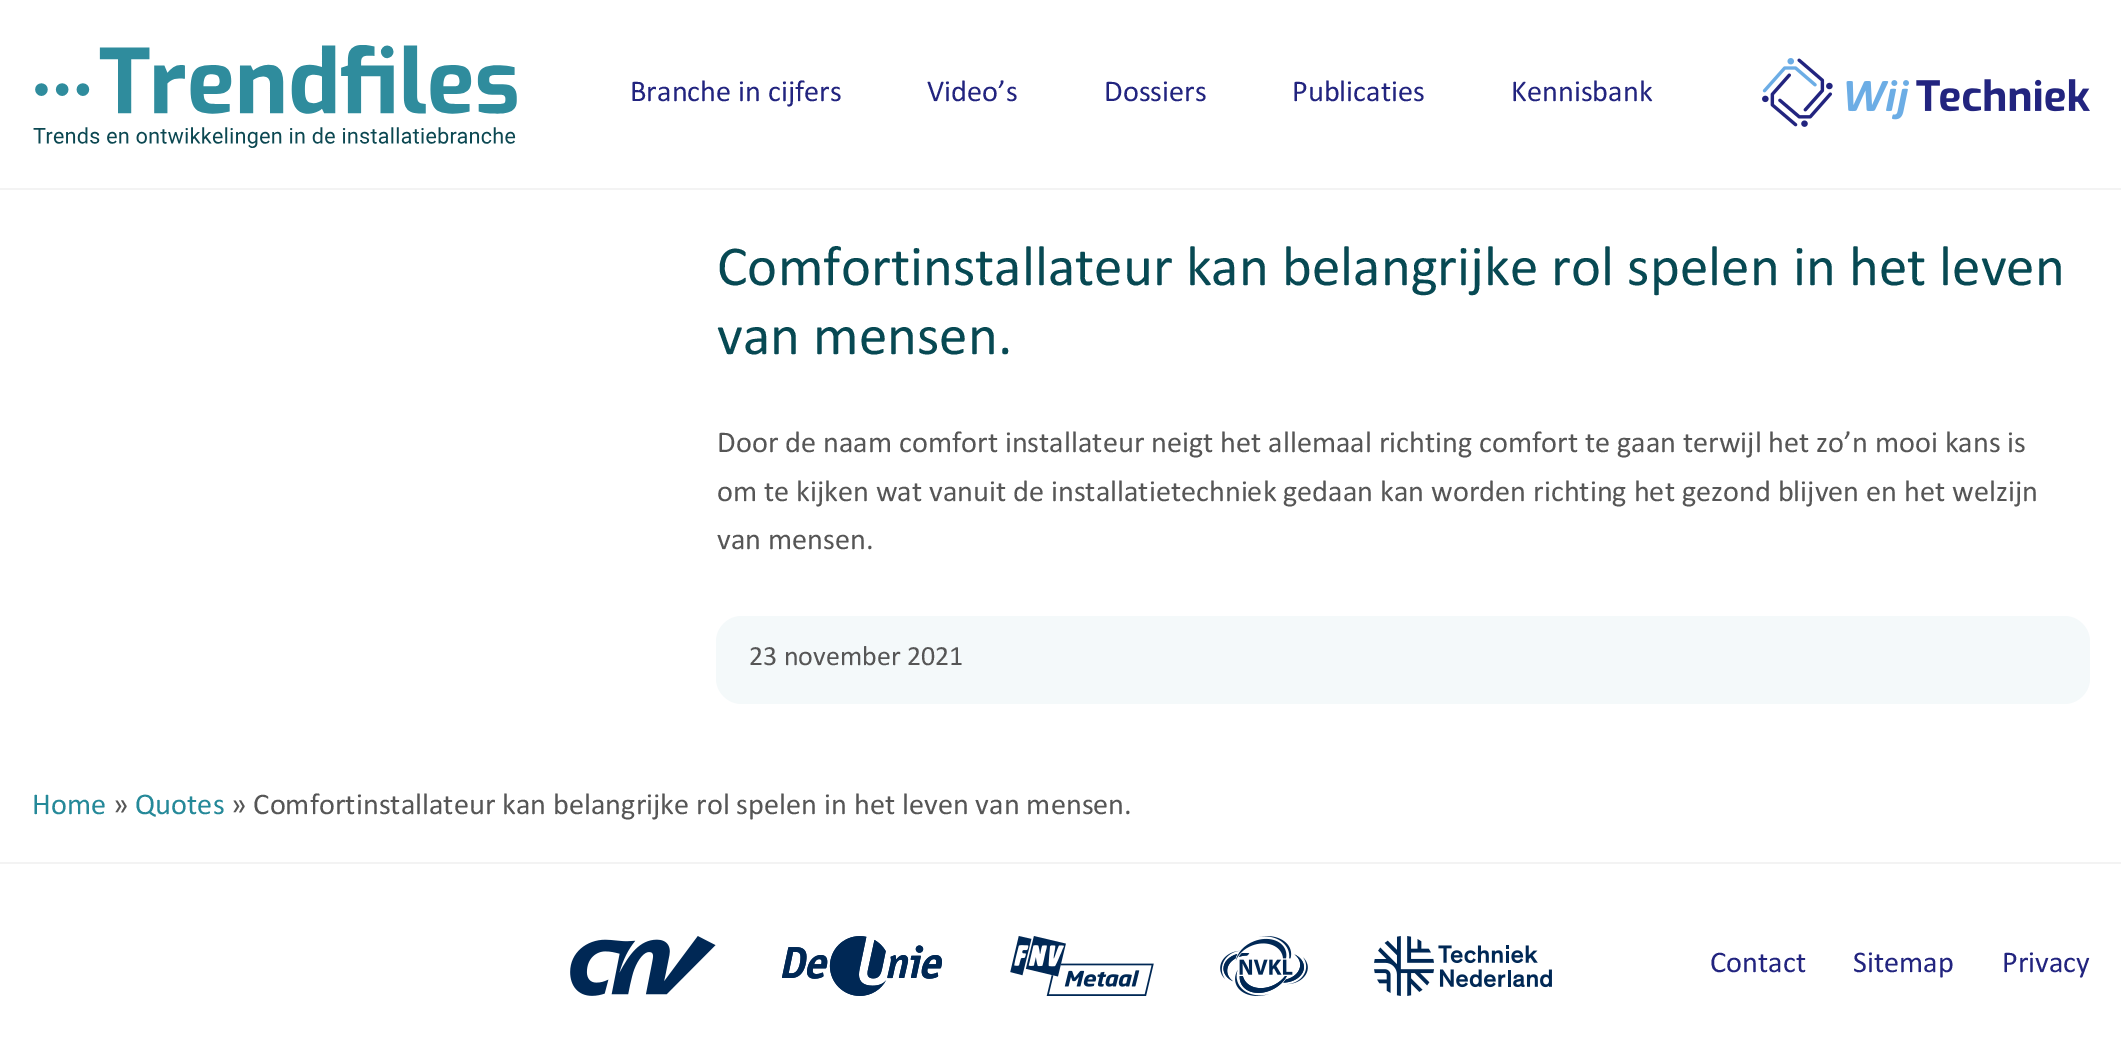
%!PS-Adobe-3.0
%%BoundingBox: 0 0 2121 1037
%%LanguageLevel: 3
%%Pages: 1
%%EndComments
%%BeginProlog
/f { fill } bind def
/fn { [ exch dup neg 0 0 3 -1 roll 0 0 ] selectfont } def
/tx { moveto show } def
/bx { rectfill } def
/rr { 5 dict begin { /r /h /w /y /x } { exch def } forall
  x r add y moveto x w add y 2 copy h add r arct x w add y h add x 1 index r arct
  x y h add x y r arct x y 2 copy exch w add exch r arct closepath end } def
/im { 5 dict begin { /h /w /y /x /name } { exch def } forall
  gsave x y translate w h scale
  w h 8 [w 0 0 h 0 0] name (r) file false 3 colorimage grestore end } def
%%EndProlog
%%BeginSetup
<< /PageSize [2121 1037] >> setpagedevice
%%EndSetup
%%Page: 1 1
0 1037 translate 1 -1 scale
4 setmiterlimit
1 setgray
0 0 2121 1037 bx
0.953 setgray
0 188 2121 2 bx
(image0.raw) 33 45 484 103 im
/calibri-Regular 30.3 fn
0.133 0.141 0.498 setrgbcolor
(Branche in cijfers) 630 101 tx
(Video’s) 927 101 tx
(Dossiers) 1104 101 tx
(Publicaties) 1292 101 tx
(Kennisbank) 1511 101 tx
(image1.raw) 1762 58 328 69 im
/calibri-Regular 57.1 fn
0.027 0.286 0.325 setrgbcolor
(Comfortinstallateur kan belangrijke rol spelen in het leven) 717 285 tx
(van mensen.) 717 354 tx
/calibri-Regular 30.3 fn
0.337 setgray
(Door de naam comfort installateur neigt het allemaal richting comfort te gaan terwijl het zo’n mooi kans is) 717 452 tx
(om te kijken wat vanuit de installatietechniek gedaan kan worden richting het gezond blijven en het welzijn) 717 501 tx
(van mensen.) 717 549 tx
0.957 0.976 0.98 setrgbcolor
716 616 1374 88 26 rr f
/calibri-Regular 28 fn
0.337 setgray
(23 november 2021) 749 665 tx
0.953 setgray
0 862 2121 2 bx
/calibri-Regular 30.3 fn
0.145 0.537 0.6 setrgbcolor
(Home) 32 814 tx
0.337 setgray
(») 113 814 tx
0.145 0.537 0.6 setrgbcolor
(Quotes) 135 814 tx
0.337 setgray
(» Comfortinstallateur kan belangrijke rol spelen in het leven van mensen.) 231 814 tx
(image2.raw) 570 936 146 60 im
(image3.raw) 782 936 160 60 im
(image4.raw) 1010 936 144 60 im
(image5.raw) 1220 936 88 60 im
(image6.raw) 1374 936 178 60 im
0.133 0.141 0.498 setrgbcolor
(Contact) 1710 972 tx
(Sitemap) 1853 972 tx
(Privacy) 2002 972 tx
showpage
%%EOF
